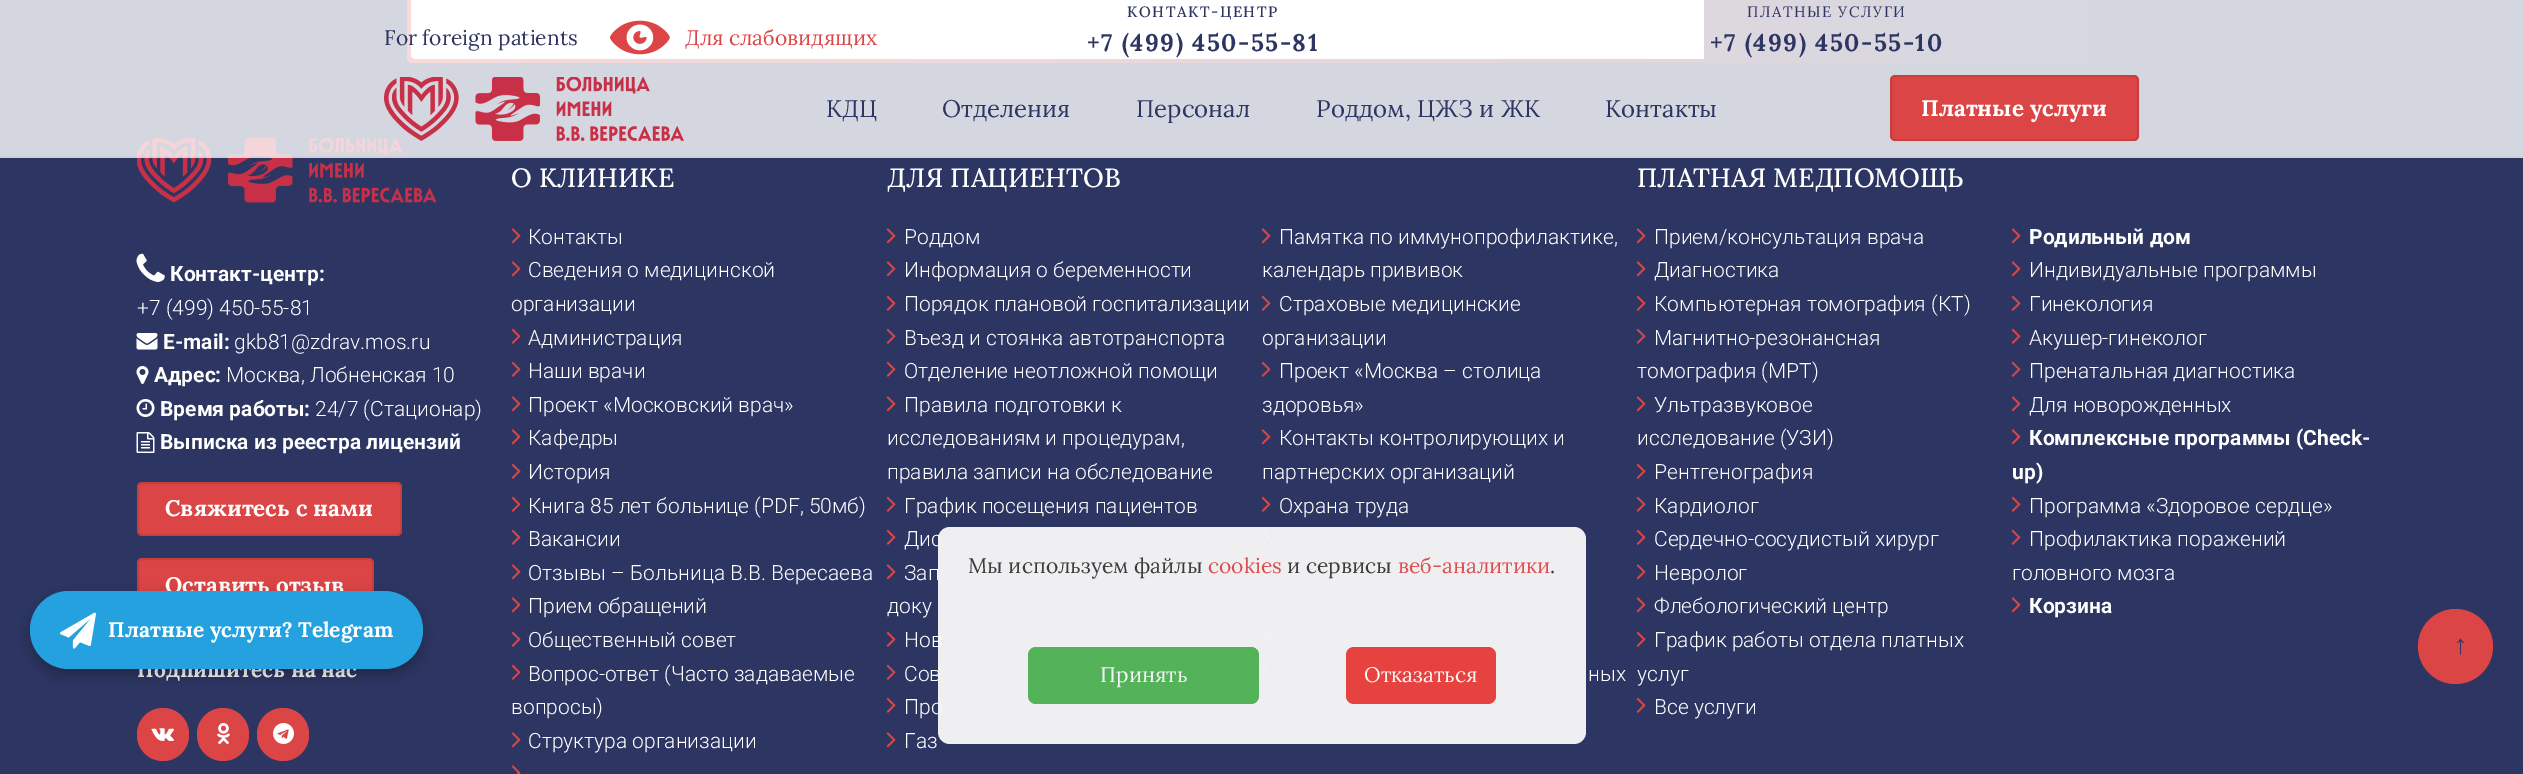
%!PS-Adobe-3.0
%%BoundingBox: 0 0 2523 774
%%LanguageLevel: 3
%%Pages: 1
%%EndComments
%%BeginProlog
/m { moveto } bind def
/l { lineto } bind def
/c { curveto } bind def
/h { closepath } bind def
/f { fill } bind def
/S { stroke } bind def
/q { gsave } bind def
/Q { grestore } bind def
/w { setlinewidth } bind def
/fn { [ exch dup neg 0 0 3 -1 roll 0 0 ] selectfont } def
/tx { moveto show } def
/bx { rectfill } def
/al { dup .setfillconstantalpha .setstrokeconstantalpha } def
/ci { newpath 0 360 arc closepath } def
/rr { 5 dict begin { /r /h /w /y /x } { exch def } forall
  x r add y moveto x w add y 2 copy h add r arct x w add y h add x 1 index r arct
  x y h add x y r arct x y 2 copy exch w add exch r arct closepath end } def
/sh { 12 dict begin { /a /b /q /h /w /y /x } { exch def } forall gsave /was 0 def
  9 -2 -9 { dup b mul 4 div /e exch def 1 sub .425 mul 2.718 exch exp 1 add a .99 .min exch div /now exch def
    1 1 now sub 1 was sub div sub al /was now def
    w h .min e 2 mul add 0 gt { x e sub y e sub w e 2 mul add h e 2 mul add
      q e add b .6 mul add w h .min 2 div e add .min 0 .max rr fill } if } for grestore end } def
/im { 5 dict begin { /h /w /y /x /name } { exch def } forall
  gsave x y translate w h scale
  w h 8 [w 0 0 h 0 0] name (r) file false 3 colorimage grestore end } def
%%EndProlog
%%BeginSetup
<< /PageSize [2523 774] /PageUsesTransparency true >> setpagedevice
%%EndSetup
%%Page: 1 1
0 .pushpdf14devicefilter
0 774 translate 1 -1 scale
4 setmiterlimit
0.176 0.212 0.388 setrgbcolor
0 0 2523 774 bx
q 407 -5 1710 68 5 rr clip newpath
<< /ShadingType 2 /ColorSpace /DeviceRGB /Coords [2117 27 407 27] /Extend [true true] /Function << /FunctionType 2 /Domain [0 1] /C0 [0.176 0.212 0.388] /C1 [0.863 0.271 0.271] /N 1 >> >> shfill Q
1 setgray
416 -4 m 1704 -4 l 1704 59 l 416 59 l 413 59 411 57 411 54 c 411 1 l 411 -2 413 -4 416 -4 c h f
(image2.raw) 137 138 300 65 im
0.8 al
0 0 2523 158 bx
0.1 al
0.608 setgray
0 156 2523 2 bx
/Lora-Regular 21 fn
1 al
0.176 0.212 0.388 setrgbcolor
(For foreign patients) 384 45 tx
(image0.raw) 609 20 61 35 im
0.863 0.271 0.271 setrgbcolor
(Для слабовидящих) 685 45 tx
/Lora-Medium 15 fn
0.176 0.212 0.388 setrgbcolor
1127 17 m 1.5 0 (КОНТАКТ-ЦЕНТР) ashow
/Lora-Bold 24 fn
1087 51 m 1.5 0 (+7 \(499\) 450-55-81) ashow
/Lora-Regular 15 fn
1747 17 m 1.5 0 (ПЛАТНЫЕ УСЛУГИ) ashow
/Lora-Bold 24 fn
1710 51 m 1.5 0 (+7 \(499\) 450-55-10) ashow
(image1.raw) 384 77 300 64 im
/Lora-Regular 24 fn
(КДЦ) 826 117 tx
(Отделения) 942 117 tx
(Персонал) 1136 117 tx
(Роддом, ЦЖЗ и ЖК) 1316 117 tx
(Контакты) 1605 117 tx
0.863 0.271 0.271 setrgbcolor
1890 75 249 66 5 rr f
0.1 al
0 setgray
2 w
1891 76 247 64 4 rr S
/Lora-Bold 22.5 fn
1 al
1 setgray
(Платные услуги) 1921 116 tx
(image3.raw) 136 253 29 29 im
/Roboto-Bold 21 fn
(Контакт-центр:) 170 281 tx
/Roboto-Light 21 fn
(+7 \(499\) 450-55-81) 137 315 tx
(image4.raw) 136 333 22 17 im
/Roboto-Bold 21 fn
(E-mail:) 163 349 tx
/Roboto-Light 21 fn
(gkb81@zdrav.mos.ru) 234 349 tx
(image5.raw) 136 366 13 18 im
/Roboto-Bold 21 fn
(Адрес:) 154 382 tx
/Roboto-Light 21 fn
(Москва, Лобненская 10) 226 382 tx
(image6.raw) 136 399 19 18 im
/Roboto-Bold 21 fn
(Время работы:) 160 416 tx
/Roboto-Light 21 fn
(24/7 \(Стационар\)) 315 416 tx
(image7.raw) 136 432 19 21 im
/Roboto-Bold 21 fn
(Выписка из реестра лицензий) 160 449 tx
0.863 0.271 0.271 setrgbcolor
137 482 265 54 5 rr f
0.1 al
0 setgray
138 483 263 52 4 rr S
/Lora-Bold 22.5 fn
1 al
1 setgray
(Свяжитесь с нами) 165 516 tx
0.863 0.271 0.271 setrgbcolor
137 558 237 54 5 rr f
0.1 al
0 setgray
138 559 235 52 4 rr S
1 al
1 setgray
(Оставить отзыв) 165 593 tx
/Lora-Bold 21 fn
(Подпишитесь на нас) 137 677 tx
0.863 0.271 0.271 setrgbcolor
137 708 52 53 26 rr f
(image8.raw) 151 728 23 13 im
197 708 52 53 26 rr f
(image9.raw) 217 723 13 21 im
257 708 52 53 26 rr f
(image10.raw) 273 723 21 21 im
/Lora-Medium 26.4 fn
1 setgray
(О КЛИНИКЕ) 511 187 tx
(image11.raw) 511 228 10 16 im
/Roboto-Light 21 fn
(Контакты) 528 244 tx
(image11.raw) 511 261 10 16 im
(Сведения о медицинской) 528 277 tx
(организации) 511 311 tx
(image12.raw) 511 328 10 16 im
(Администрация) 528 345 tx
(image12.raw) 511 361 10 16 im
(Наши врачи) 528 378 tx
(image11.raw) 511 396 10 16 im
(Проект «Московский врач») 528 412 tx
(image11.raw) 511 429 10 16 im
(Кафедры) 528 445 tx
(image12.raw) 511 463 10 16 im
(История) 528 479 tx
(image12.raw) 511 496 10 16 im
(Книга 85 лет больнице \(PDF, 50мб\)) 528 513 tx
(image12.raw) 511 529 10 16 im
(Вакансии) 528 546 tx
(image11.raw) 511 564 10 16 im
(Отзывы – Больница В.В. Вересаева) 528 580 tx
(image11.raw) 511 597 10 16 im
(Прием обращений) 528 613 tx
(image12.raw) 511 631 10 16 im
(Общественный совет) 528 647 tx
(image12.raw) 511 664 10 16 im
(Вопрос-ответ \(Часто задаваемые) 528 681 tx
(вопросы\)) 511 714 tx
(image11.raw) 511 732 10 16 im
(Структура организации) 528 748 tx
(image13.raw) 511 765 10 9 im
/Lora-Medium 26.4 fn
(ДЛЯ ПАЦИЕНТОВ) 887 187 tx
(image11.raw) 886 228 10 16 im
/Roboto-Light 21 fn
(Роддом) 904 244 tx
(image11.raw) 886 261 10 16 im
(Информация о беременности) 904 277 tx
(image12.raw) 886 295 10 16 im
(Порядок плановой госпитализации) 904 311 tx
(image12.raw) 886 328 10 16 im
(Въезд и стоянка автотранспорта) 904 345 tx
(image12.raw) 886 361 10 16 im
(Отделение неотложной помощи) 904 378 tx
(image11.raw) 886 396 10 16 im
(Правила подготовки к) 904 412 tx
(исследованиям и процедурам,) 887 445 tx
(правила записи на обследование) 887 479 tx
(image12.raw) 886 496 10 16 im
(График посещения пациентов) 904 513 tx
(image12.raw) 886 529 10 16 im
(Дис) 904 546 tx
(image11.raw) 886 564 10 16 im
(Зап) 904 580 tx
(доку) 887 613 tx
(image12.raw) 886 631 10 16 im
(Нов) 904 647 tx
(image12.raw) 886 664 10 16 im
(Сов) 904 681 tx
(image12.raw) 886 697 10 16 im
(Про) 904 714 tx
(image11.raw) 886 732 10 16 im
(Газ) 904 748 tx
(image11.raw) 1261 228 10 16 im
(Памятка по иммунопрофилактике,) 1279 244 tx
(календарь прививок) 1262 277 tx
(image12.raw) 1261 295 10 16 im
(Страховые медицинские) 1279 311 tx
(организации) 1262 345 tx
(image12.raw) 1261 361 10 16 im
(Проект «Москва – столица) 1279 378 tx
(здоровья») 1262 412 tx
(image11.raw) 1261 429 10 16 im
(Контакты контролирующих и) 1279 445 tx
(партнерских организаций) 1262 479 tx
(image12.raw) 1261 496 10 16 im
(Охрана труда) 1279 513 tx
(image12.raw) 1261 529 10 16 im
(image11.raw) 1261 564 10 16 im
(image12.raw) 1261 631 10 16 im
(image12.raw) 1261 664 10 16 im
(ных) 1588 681 tx
/Lora-Medium 26.4 fn
(ПЛАТНАЯ МЕДПОМОЩЬ) 1637 187 tx
(image11.raw) 1636 228 10 16 im
/Roboto-Light 21 fn
(Прием/консультация врача) 1654 244 tx
(image11.raw) 1636 261 10 16 im
(Диагностика) 1654 277 tx
(image12.raw) 1636 295 10 16 im
(Компьютерная томография \(КТ\)) 1654 311 tx
(image12.raw) 1636 328 10 16 im
(Магнитно-резонансная) 1654 345 tx
(томография \(МРТ\)) 1637 378 tx
(image11.raw) 1636 396 10 16 im
(Ультразвуковое) 1654 412 tx
(исследование \(УЗИ\)) 1637 445 tx
(image12.raw) 1636 463 10 16 im
(Рентгенография) 1654 479 tx
(image12.raw) 1636 496 10 16 im
(Кардиолог) 1654 513 tx
(image12.raw) 1636 529 10 16 im
(Сердечно-сосудистый хирург) 1654 546 tx
(image11.raw) 1636 564 10 16 im
(Невролог) 1654 580 tx
(image11.raw) 1636 597 10 16 im
(Флебологический центр) 1654 613 tx
(image12.raw) 1636 631 10 16 im
(График работы отдела платных) 1654 647 tx
(услуг) 1637 681 tx
(image12.raw) 1636 697 10 16 im
(Все услуги) 1654 714 tx
(image11.raw) 2011 228 10 16 im
/Roboto-Bold 21 fn
(Родильный дом) 2029 244 tx
(image11.raw) 2011 261 10 16 im
/Roboto-Light 21 fn
(Индивидуальные программы) 2029 277 tx
(image12.raw) 2011 295 10 16 im
(Гинекология) 2029 311 tx
(image12.raw) 2011 328 10 16 im
(Акушер-гинеколог) 2029 345 tx
(image12.raw) 2011 361 10 16 im
(Пренатальная диагностика) 2029 378 tx
(image11.raw) 2011 396 10 16 im
(Для новорожденных) 2029 412 tx
(image11.raw) 2011 429 10 16 im
/Roboto-Bold 21 fn
(Комплексные программы \(Check-) 2029 445 tx
(up\)) 2012 479 tx
(image12.raw) 2011 496 10 16 im
/Roboto-Light 21 fn
(Программа «Здоровое сердце») 2029 513 tx
(image12.raw) 2011 529 10 16 im
(Профилактика поражений) 2029 546 tx
(головного мозга) 2012 580 tx
(image11.raw) 2011 597 10 16 im
/Roboto-Bold 21 fn
(Корзина) 2029 613 tx
0.863 0.271 0.271 setrgbcolor
2455.5 646.5 37.5 ci f
/LiberationSerif-Regular 27 fn
0.176 0.212 0.388 setrgbcolor
q 2465 660 translate -90 rotate 0 0 m (→) show Q
0 setgray
30 597 393 78 39 7.5 0.3 sh
0.141 0.631 0.871 setrgbcolor
30 591 393 78 39 rr f
(image14.raw) 60 612 36 37 im
/Lora-Bold 21 fn
1 setgray
(Платные услуги? Telegram) 108 637 tx
0.95 al
0.976 setgray
938 527 648 217 12 rr f
/Lora-Regular 21 fn
1 al
0.235 0.235 0.239 setrgbcolor
(Мы используем файлы) 968 573 tx
0.867 0.306 0.306 setrgbcolor
(cookies) 1208 573 tx
0.235 0.235 0.239 setrgbcolor
(и сервисы) 1287 573 tx
0.867 0.306 0.306 setrgbcolor
(веб-аналитики) 1398 573 tx
0.2 0.2 0.208 setrgbcolor
(.) 1550 573 tx
0.95 al
0.298 0.686 0.314 setrgbcolor
1028 647 231 57 8 rr f
1 al
0.961 0.961 0.969 setrgbcolor
(Принять) 1100 682 tx
0.95 al
0.898 0.224 0.208 setrgbcolor
1346 647 150 57 8 rr f
1 al
0.996 0.965 0.961 setrgbcolor
(Отказаться) 1364 682 tx
.poppdf14devicefilter showpage
%%EOF
